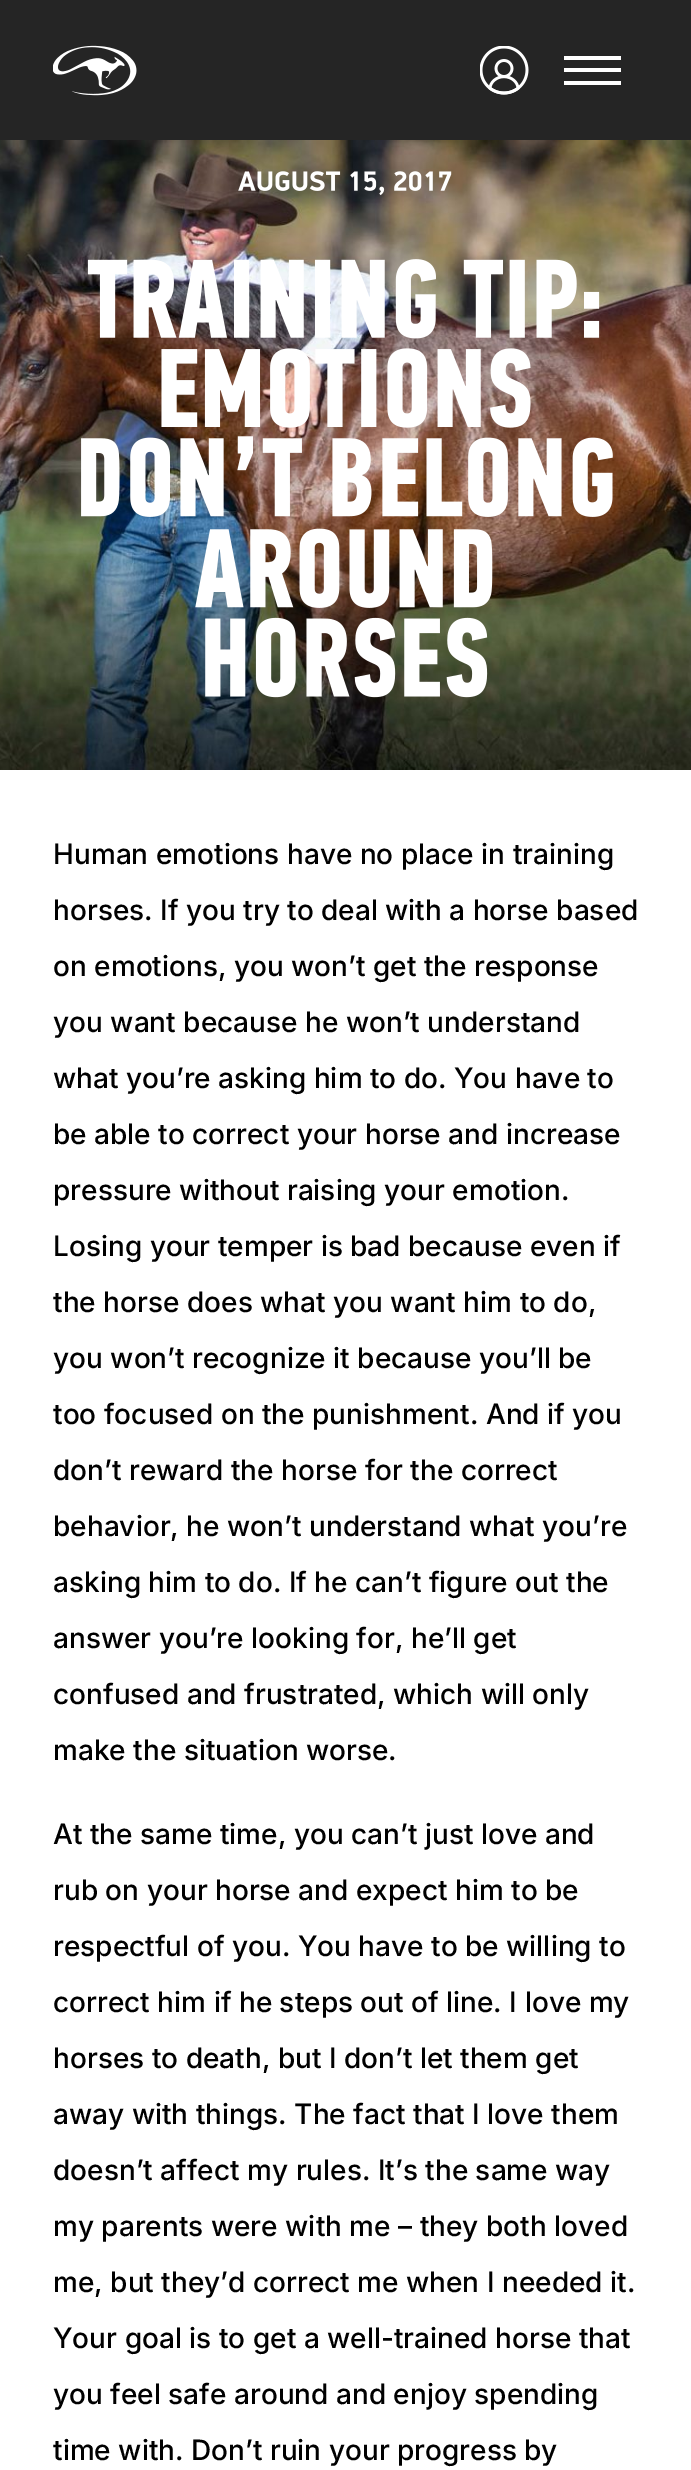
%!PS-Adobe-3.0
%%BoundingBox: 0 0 691 2470
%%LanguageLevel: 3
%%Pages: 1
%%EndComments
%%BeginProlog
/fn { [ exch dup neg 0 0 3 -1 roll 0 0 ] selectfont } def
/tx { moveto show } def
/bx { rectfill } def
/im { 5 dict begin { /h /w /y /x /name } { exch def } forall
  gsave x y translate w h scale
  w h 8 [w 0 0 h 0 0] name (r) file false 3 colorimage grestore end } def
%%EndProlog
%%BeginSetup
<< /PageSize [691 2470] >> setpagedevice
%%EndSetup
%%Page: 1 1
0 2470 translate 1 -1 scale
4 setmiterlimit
1 setgray
0 0 691 2470 bx
0.145 setgray
0 0 691 140 bx
(image0.raw) 53 45 84 51 im
(image1.raw) 480 46 49 49 im
1 setgray
564 68 57 4 bx
564 56 57 4 bx
564 81 57 4 bx
(image2.raw) 0 140 691 630 im
(image3.raw) 238 171 214 25 im
(image4.raw) 87 259 513 80 im
(image5.raw) 161 348 370 80 im
(image6.raw) 81 436 532 81 im
(image7.raw) 195 528 298 80 im
(image8.raw) 205 617 283 81 im
/Inter-Medium 28 fn
0 setgray
(Human emotions have no place in training) 53 864 tx
(horses. If you try to deal with a horse based) 53 920 tx
(on emotions, you won’t get the response) 53 976 tx
(you want because he won’t understand) 53 1032 tx
(what you’re asking him to do. You have to) 53 1088 tx
(be able to correct your horse and increase) 53 1144 tx
(pressure without raising your emotion.) 53 1200 tx
(Losing your temper is bad because even if) 53 1256 tx
(the horse does what you want him to do,) 53 1312 tx
(you won’t recognize it because you’ll be) 53 1368 tx
(too focused on the punishment. And if you) 53 1424 tx
(don’t reward the horse for the correct) 53 1480 tx
(behavior, he won’t understand what you’re) 53 1536 tx
(asking him to do. If he can’t figure out the) 53 1592 tx
(answer you’re looking for, he’ll get) 53 1648 tx
(confused and frustrated, which will only) 53 1704 tx
(make the situation worse.) 53 1760 tx
(At the same time, you can’t just love and) 53 1844 tx
(rub on your horse and expect him to be) 53 1900 tx
(respectful of you. You have to be willing to) 53 1956 tx
(correct him if he steps out of line. I love my) 53 2012 tx
(horses to death, but I don’t let them get) 53 2068 tx
(away with things. The fact that I love them) 53 2124 tx
(doesn’t affect my rules. It’s the same way) 53 2180 tx
(my parents were with me – they both loved) 53 2236 tx
(me, but they’d correct me when I needed it.) 53 2292 tx
(Your goal is to get a well-trained horse that) 53 2348 tx
(you feel safe around and enjoy spending) 53 2404 tx
(time with. Don’t ruin your progress by) 53 2460 tx
showpage
%%EOF
